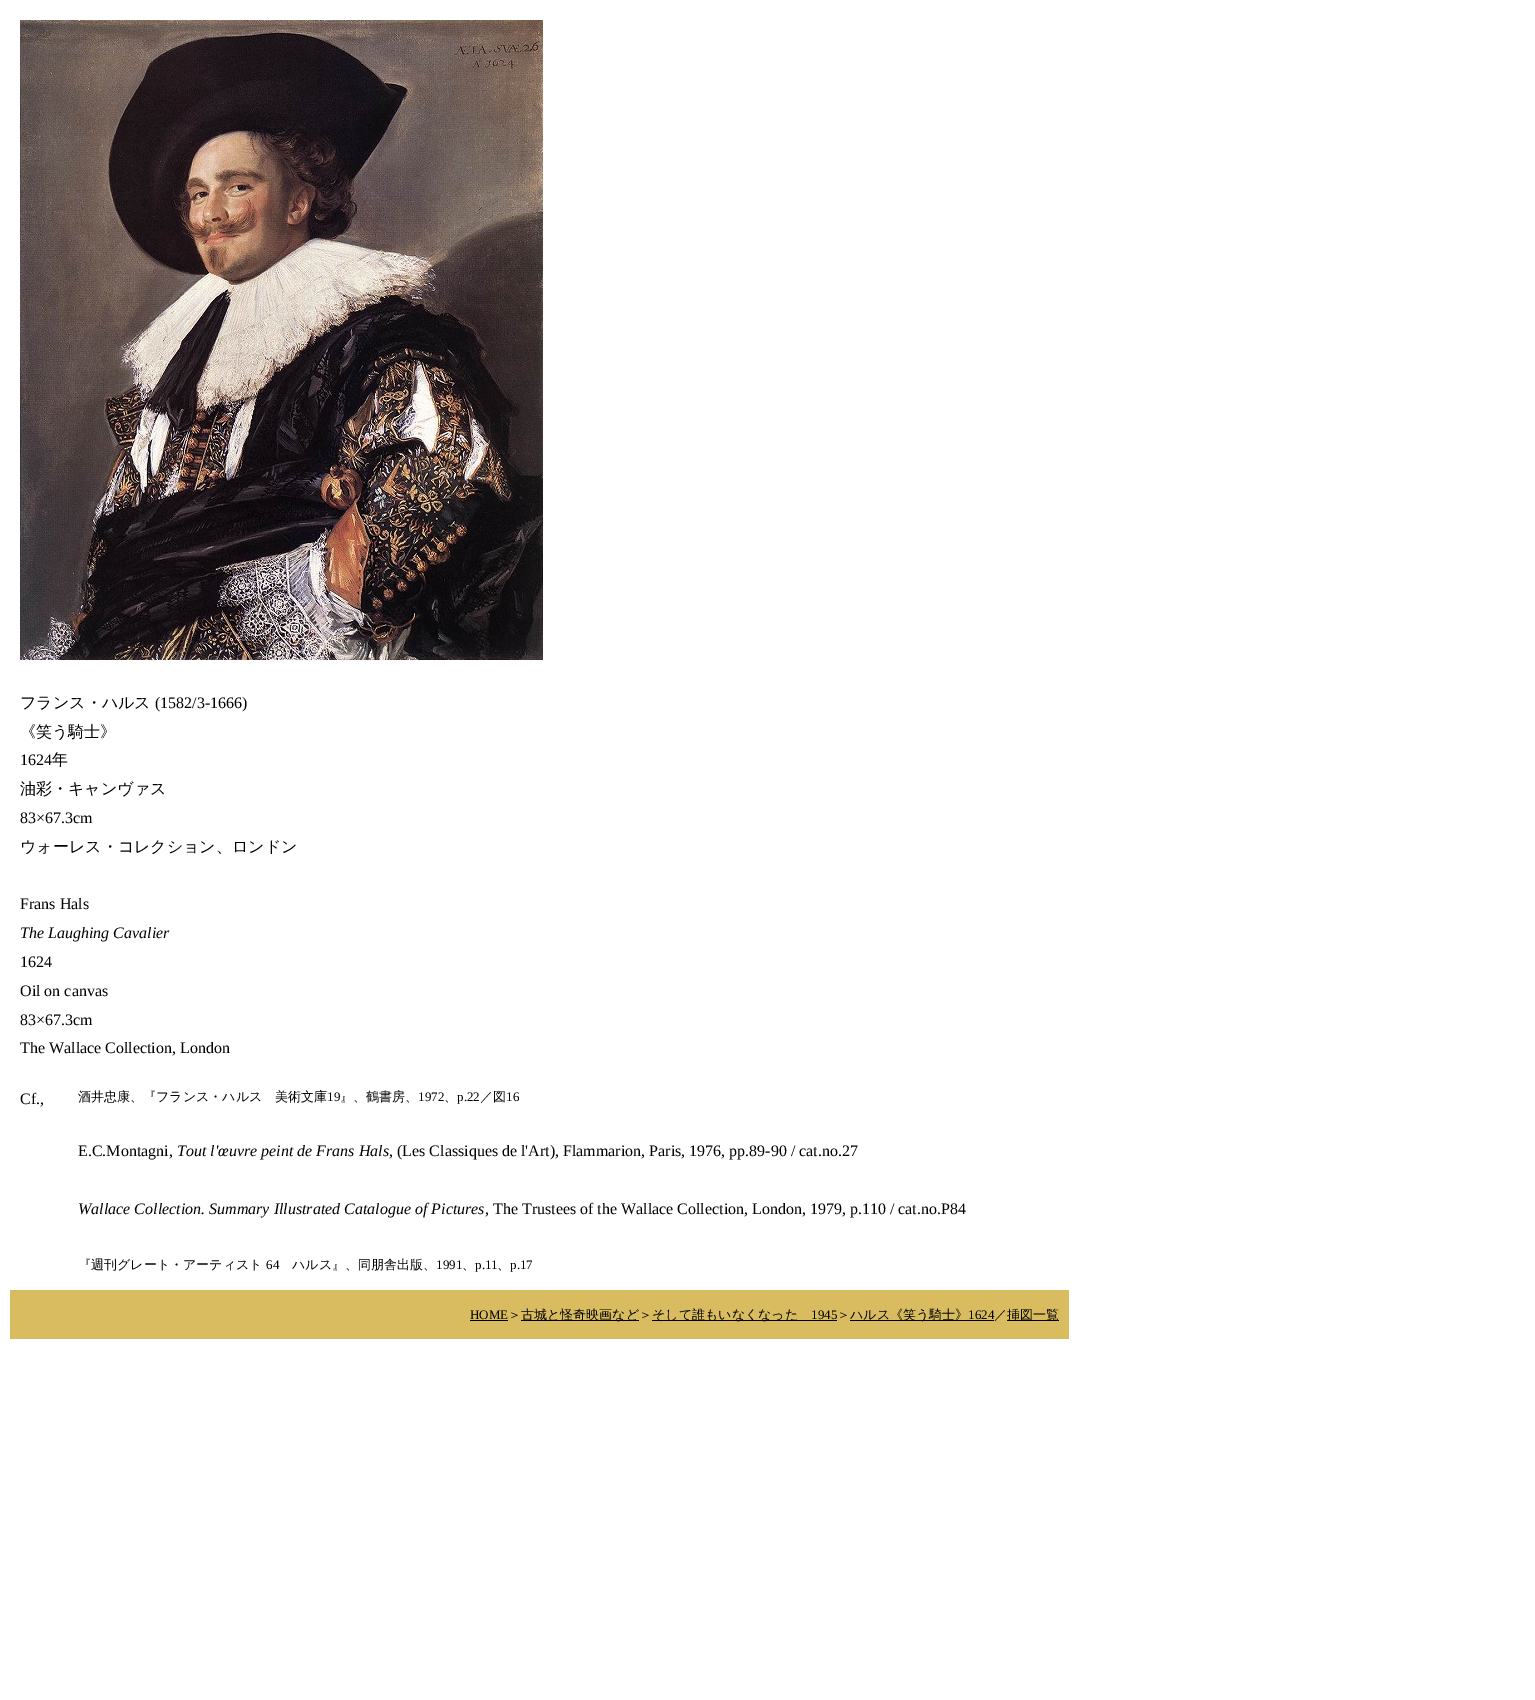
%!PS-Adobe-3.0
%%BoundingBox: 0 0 1535 1700
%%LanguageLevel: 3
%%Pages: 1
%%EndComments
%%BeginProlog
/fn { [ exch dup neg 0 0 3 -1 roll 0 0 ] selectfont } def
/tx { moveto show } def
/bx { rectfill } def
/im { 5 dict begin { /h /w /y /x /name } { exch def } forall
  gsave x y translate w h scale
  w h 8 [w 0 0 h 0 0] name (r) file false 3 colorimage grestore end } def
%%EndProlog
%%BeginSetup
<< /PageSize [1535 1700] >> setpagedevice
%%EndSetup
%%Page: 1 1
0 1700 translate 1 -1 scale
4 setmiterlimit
1 setgray
0 0 1535 1700 bx
(image0.raw) 20 20 523 640 im
/WenQuanYiZenHei-Medium 16 fn
0 setgray
(フランス・ハルス) 20 708 tx
/LiberationSerif-Regular 16 fn
(\(1582/3-1666\)) 155 708 tx
/WenQuanYiZenHei-Medium 16 fn
(《笑う騎士》) 20 737 tx
/LiberationSerif-Regular 16 fn
(1624) 20 765 tx
/WenQuanYiZenHei-Medium 16 fn
(年) 52 765 tx
(油彩・キャンヴァス) 20 794 tx
/LiberationSerif-Regular 16 fn
(83×67.3cm) 20 823 tx
/WenQuanYiZenHei-Medium 16 fn
(ウォーレス・コレクション、ロンドン) 20 852 tx
/LiberationSerif-Regular 16 fn
(Frans Hals) 20 909 tx
/LiberationSerif-Italic 16 fn
(The Laughing Cavalier) 20 938 tx
/LiberationSerif-Regular 16 fn
(1624) 20 967 tx
(Oil on canvas) 20 996 tx
(83×67.3cm) 20 1025 tx
(The Wallace Collection, London) 20 1053 tx
(Cf.,) 20 1104 tx
/WenQuanYiZenHei-Medium 13 fn
(酒井忠康、『フランス・ハルス　美術文庫) 78 1101 tx
/LiberationSerif-Regular 13 fn
(19) 327 1101 tx
/WenQuanYiZenHei-Medium 13 fn
(』、鶴書房、) 340 1101 tx
/LiberationSerif-Regular 13 fn
(1972) 418 1101 tx
/WenQuanYiZenHei-Medium 13 fn
(、) 444 1101 tx
/LiberationSerif-Regular 13 fn
(p.22) 457 1101 tx
/WenQuanYiZenHei-Medium 13 fn
(／図) 480 1101 tx
/LiberationSerif-Regular 13 fn
(16) 506 1101 tx
/LiberationSerif-Regular 16 fn
(E.C.Montagni,) 78 1156 tx
/LiberationSerif-Italic 16 fn
(Tout l'œuvre peint de Frans Hals) 177 1156 tx
/LiberationSerif-Regular 16 fn
(, \(Les Classiques de l'Art\), Flammarion, Paris, 1976, pp.89-90 / cat.no.27) 389 1156 tx
/LiberationSerif-Italic 16 fn
(Wallace Collection. Summary Illustrated Catalogue of Pictures) 78 1214 tx
/LiberationSerif-Regular 16 fn
(, The Trustees of the Wallace Collection, London, 1979, p.110 / cat.no.P84) 485 1214 tx
/WenQuanYiZenHei-Medium 13 fn
(『週刊グレート・アーティスト) 78 1269 tx
/LiberationSerif-Regular 13 fn
(64) 266 1269 tx
/WenQuanYiZenHei-Medium 13 fn
(ハルス』、同朋舎出版、) 292 1269 tx
/LiberationSerif-Regular 13 fn
(1991) 436 1269 tx
/WenQuanYiZenHei-Medium 13 fn
(、) 462 1269 tx
/LiberationSerif-Regular 13 fn
(p.11) 475 1269 tx
/WenQuanYiZenHei-Medium 13 fn
(、) 497 1269 tx
/LiberationSerif-Regular 13 fn
(p.17) 510 1269 tx
0.847 0.737 0.373 setrgbcolor
10 1290 1059 49 bx
0 setgray
(HOME) 470 1319 tx
470 1320 38 1 bx
/WenQuanYiZenHei-Medium 13 fn
(＞) 508 1319 tx
521 1320 118 1 bx
(古城と怪奇映画など＞) 521 1319 tx
652 1320 185 1 bx
(そして誰もいなくなった) 652 1319 tx
/LiberationSerif-Regular 13 fn
(1945) 811 1319 tx
/WenQuanYiZenHei-Medium 13 fn
(＞) 837 1319 tx
850 1320 144 1 bx
(ハルス《笑う騎士》) 850 1319 tx
/LiberationSerif-Regular 13 fn
(1624) 968 1319 tx
/WenQuanYiZenHei-Medium 13 fn
(／) 994 1319 tx
1007 1320 52 1 bx
(挿図一覧) 1007 1319 tx
showpage
%%EOF
